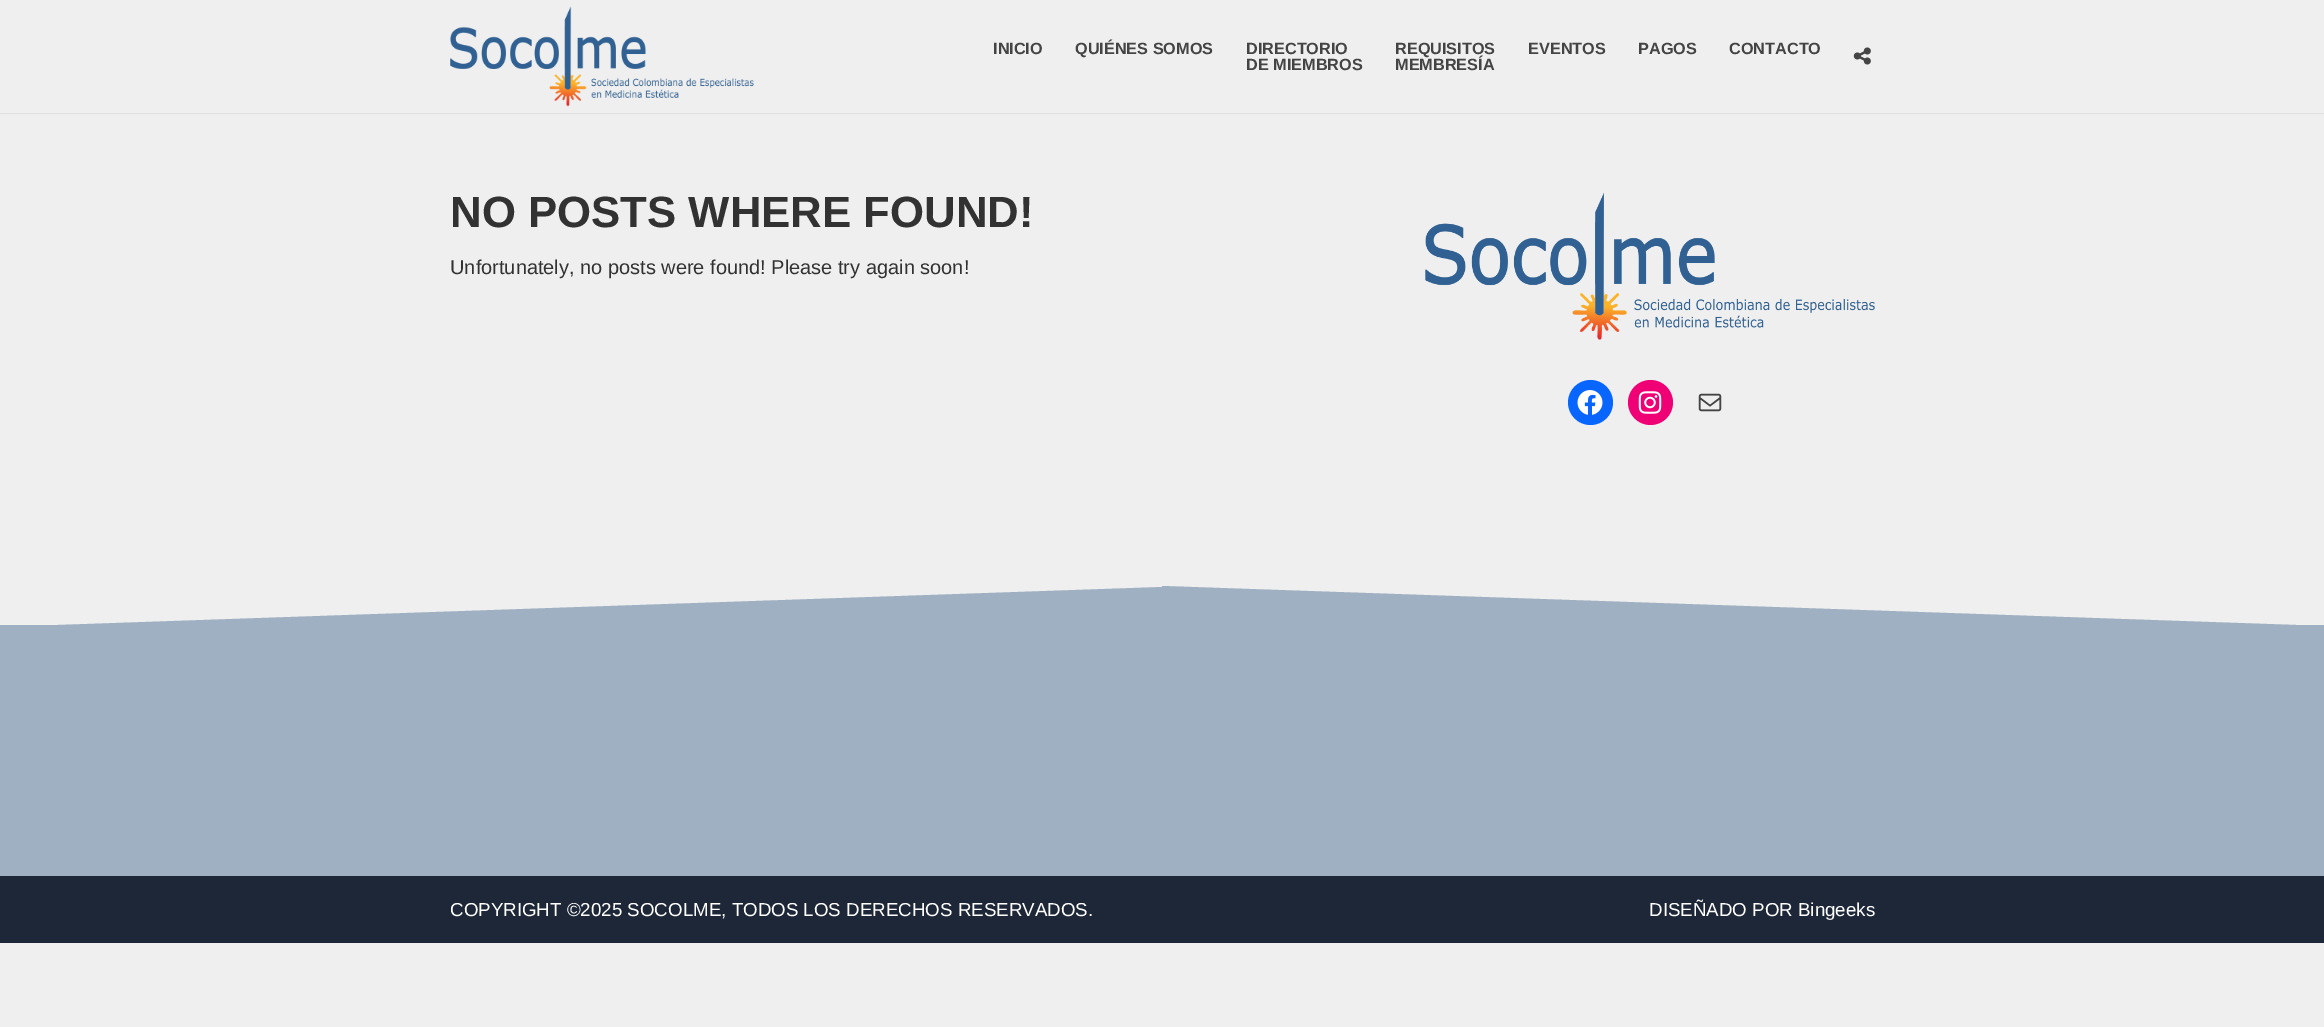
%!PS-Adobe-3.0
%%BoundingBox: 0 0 2324 1027
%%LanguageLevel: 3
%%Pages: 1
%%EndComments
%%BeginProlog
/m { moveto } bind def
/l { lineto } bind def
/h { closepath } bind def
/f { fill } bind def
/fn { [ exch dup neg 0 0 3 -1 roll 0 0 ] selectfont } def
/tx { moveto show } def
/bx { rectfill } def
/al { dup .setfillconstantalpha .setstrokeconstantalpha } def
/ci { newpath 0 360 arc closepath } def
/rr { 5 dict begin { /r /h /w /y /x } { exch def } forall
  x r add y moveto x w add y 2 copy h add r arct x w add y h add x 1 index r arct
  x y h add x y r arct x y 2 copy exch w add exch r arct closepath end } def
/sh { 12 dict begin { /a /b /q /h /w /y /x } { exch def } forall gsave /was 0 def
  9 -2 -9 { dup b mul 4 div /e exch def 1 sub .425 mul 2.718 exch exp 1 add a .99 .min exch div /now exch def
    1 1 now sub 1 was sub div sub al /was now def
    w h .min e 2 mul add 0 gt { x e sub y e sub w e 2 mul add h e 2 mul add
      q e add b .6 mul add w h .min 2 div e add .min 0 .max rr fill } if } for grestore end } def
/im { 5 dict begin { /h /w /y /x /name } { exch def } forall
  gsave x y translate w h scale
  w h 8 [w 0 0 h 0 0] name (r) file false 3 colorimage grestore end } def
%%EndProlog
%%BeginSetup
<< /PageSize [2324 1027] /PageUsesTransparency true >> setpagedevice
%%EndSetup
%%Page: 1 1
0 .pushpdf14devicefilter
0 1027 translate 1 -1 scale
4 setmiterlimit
0.937 setgray
0 0 2324 1027 bx
0 setgray
0 0 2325 113 0 0.5 0.2 sh
0.937 setgray
0 0 2324 113 bx
(image0.raw) 450 6 304 101 im
/LiberationSans-Bold 16.25 fn
0.267 setgray
(INICIO) 993 54 tx
(QUIÉNES SOMOS) 1075 54 tx
(DIRECTORIO) 1246 54 tx
(DE MIEMBROS) 1246 70 tx
(REQUISITOS) 1395 54 tx
(MEMBRESÍA) 1395 70 tx
(EVENTOS) 1528 54 tx
(PAGOS) 1638 54 tx
(CONTACTO) 1729 54 tx
(image1.raw) 1853 47 18 18 im
/LiberationSans-Bold 43.75 fn
0.196 setgray
(NO POSTS WHERE FOUND!) 450 227 tx
/LiberationSans-Regular 20 fn
(Unfortunately, no posts were found! Please try again soon!) 450 274 tx
(image2.raw) 1425 192 450 148 im
0.031 0.4 1 setrgbcolor
1590.5 402.5 22.5 ci f
(image3.raw) 1577 390 26 25 im
0.941 0 0.459 setrgbcolor
1650.5 402.5 22.5 ci f
(image4.raw) 1638 391 24 23 im
(image5.raw) 1698 393 24 19 im
0.62 0.69 0.757 setrgbcolor
0 625 2324 251 bx
1162 626 m 1162 586 l 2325 626 l h f
1163 627 m 1163 587 l 0 627 l h f
0.118 0.153 0.216 setrgbcolor
0 876 2324 67 bx
/LiberationSans-Regular 18.75 fn
1 setgray
(COPYRIGHT ©2025 SOCOLME, TODOS LOS DERECHOS RESERVADOS.) 450 916 tx
(DISEÑADO POR Bingeeks) 1649 916 tx
.poppdf14devicefilter showpage
%%EOF
